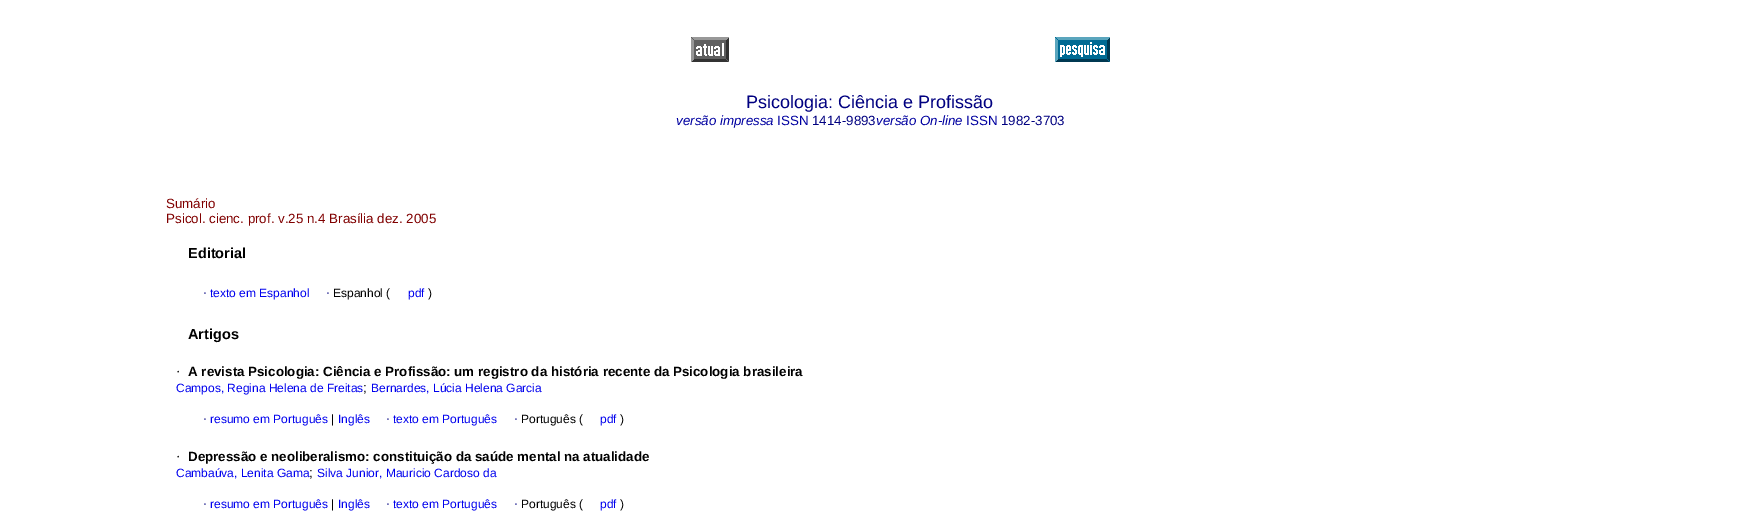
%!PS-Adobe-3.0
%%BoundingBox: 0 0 1740 511
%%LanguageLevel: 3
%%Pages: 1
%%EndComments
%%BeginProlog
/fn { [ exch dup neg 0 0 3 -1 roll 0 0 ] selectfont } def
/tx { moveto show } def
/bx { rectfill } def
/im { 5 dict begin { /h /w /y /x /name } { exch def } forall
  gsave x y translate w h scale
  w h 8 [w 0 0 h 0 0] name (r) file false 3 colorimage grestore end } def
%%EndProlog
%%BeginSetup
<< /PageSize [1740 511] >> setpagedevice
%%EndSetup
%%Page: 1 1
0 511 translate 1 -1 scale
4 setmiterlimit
1 setgray
0 0 1740 511 bx
(image0.raw) 691 37 38 25 im
(image1.raw) 1055 37 55 25 im
/LiberationSans-Regular 18 fn
0 0 0.502 setrgbcolor
(Psicologia: Ciência e Profissão) 746 108 tx
/LiberationSans-Italic 13.35 fn
0 0 0.627 setrgbcolor
(versão impressa) 676 125 tx
/LiberationSans-Regular 13.35 fn
(ISSN) 777 125 tx
0 0 0.502 setrgbcolor
(1414-9893) 812 125 tx
/LiberationSans-Italic 13.35 fn
0 0 0.627 setrgbcolor
(versão On-line) 876 125 tx
/LiberationSans-Regular 13.35 fn
(ISSN) 966 125 tx
0 0 0.502 setrgbcolor
(1982-3703) 1001 125 tx
0.502 0 0 setrgbcolor
(Sumário) 166 208 tx
(Psicol. cienc. prof. v.25 n.4 Brasília dez. 2005) 166 223 tx
/LiberationSans-Bold 14.5 fn
0 setgray
(Editorial) 188 258 tx
/LiberationSerif-Regular 12 fn
0 0 0.502 setrgbcolor
(·) 203 297 tx
/LiberationSans-Regular 12 fn
0 0 0.933 setrgbcolor
(texto em Espanhol) 210 297 tx
/LiberationSerif-Regular 12 fn
0 0 0.502 setrgbcolor
(·) 326 297 tx
/LiberationSans-Regular 12 fn
0 setgray
(Espanhol \() 333 297 tx
0 0 0.933 setrgbcolor
(pdf) 408 297 tx
0 setgray
(\)) 428 297 tx
/LiberationSans-Bold 14.5 fn
(Artigos) 188 339 tx
/LiberationSerif-Regular 13.35 fn
(·) 176 376 tx
/LiberationSans-Bold 13.35 fn
(A revista Psicologia: Ciência e Profissão: um registro da história recente da Psicologia brasileira) 188 376 tx
/LiberationSans-Regular 12 fn
0 0 0.933 setrgbcolor
(Campos, Regina Helena de Freitas) 176 392 tx
/LiberationSans-Regular 13.35 fn
0 setgray
(;) 363 392 tx
/LiberationSans-Regular 12 fn
0 0 0.933 setrgbcolor
(Bernardes, Lúcia Helena Garcia) 371 392 tx
/LiberationSerif-Regular 12 fn
0 0 0.502 setrgbcolor
(·) 203 423 tx
/LiberationSans-Regular 12 fn
0 0 0.933 setrgbcolor
(resumo em Português) 210 423 tx
0 setgray
(|) 331 423 tx
0 0 0.933 setrgbcolor
(Inglês) 338 423 tx
/LiberationSerif-Regular 12 fn
0 0 0.502 setrgbcolor
(·) 386 423 tx
/LiberationSans-Regular 12 fn
0 0 0.933 setrgbcolor
(texto em Português) 393 423 tx
/LiberationSerif-Regular 12 fn
0 0 0.502 setrgbcolor
(·) 514 423 tx
/LiberationSans-Regular 12 fn
0 setgray
(Português \() 521 423 tx
0 0 0.933 setrgbcolor
(pdf) 600 423 tx
0 setgray
(\)) 620 423 tx
/LiberationSerif-Regular 13.35 fn
(·) 176 461 tx
/LiberationSans-Bold 13.35 fn
(Depressão e neoliberalismo: constituição da saúde mental na atualidade) 188 461 tx
/LiberationSans-Regular 12 fn
0 0 0.933 setrgbcolor
(Cambaúva, Lenita Gama) 176 477 tx
/LiberationSans-Regular 13.35 fn
0 setgray
(;) 309 477 tx
/LiberationSans-Regular 12 fn
0 0 0.933 setrgbcolor
(Silva Junior, Mauricio Cardoso da) 317 477 tx
/LiberationSerif-Regular 12 fn
0 0 0.502 setrgbcolor
(·) 203 508 tx
/LiberationSans-Regular 12 fn
0 0 0.933 setrgbcolor
(resumo em Português) 210 508 tx
0 setgray
(|) 331 508 tx
0 0 0.933 setrgbcolor
(Inglês) 338 508 tx
/LiberationSerif-Regular 12 fn
0 0 0.502 setrgbcolor
(·) 386 508 tx
/LiberationSans-Regular 12 fn
0 0 0.933 setrgbcolor
(texto em Português) 393 508 tx
/LiberationSerif-Regular 12 fn
0 0 0.502 setrgbcolor
(·) 514 508 tx
/LiberationSans-Regular 12 fn
0 setgray
(Português \() 521 508 tx
0 0 0.933 setrgbcolor
(pdf) 600 508 tx
0 setgray
(\)) 620 508 tx
showpage
%%EOF
